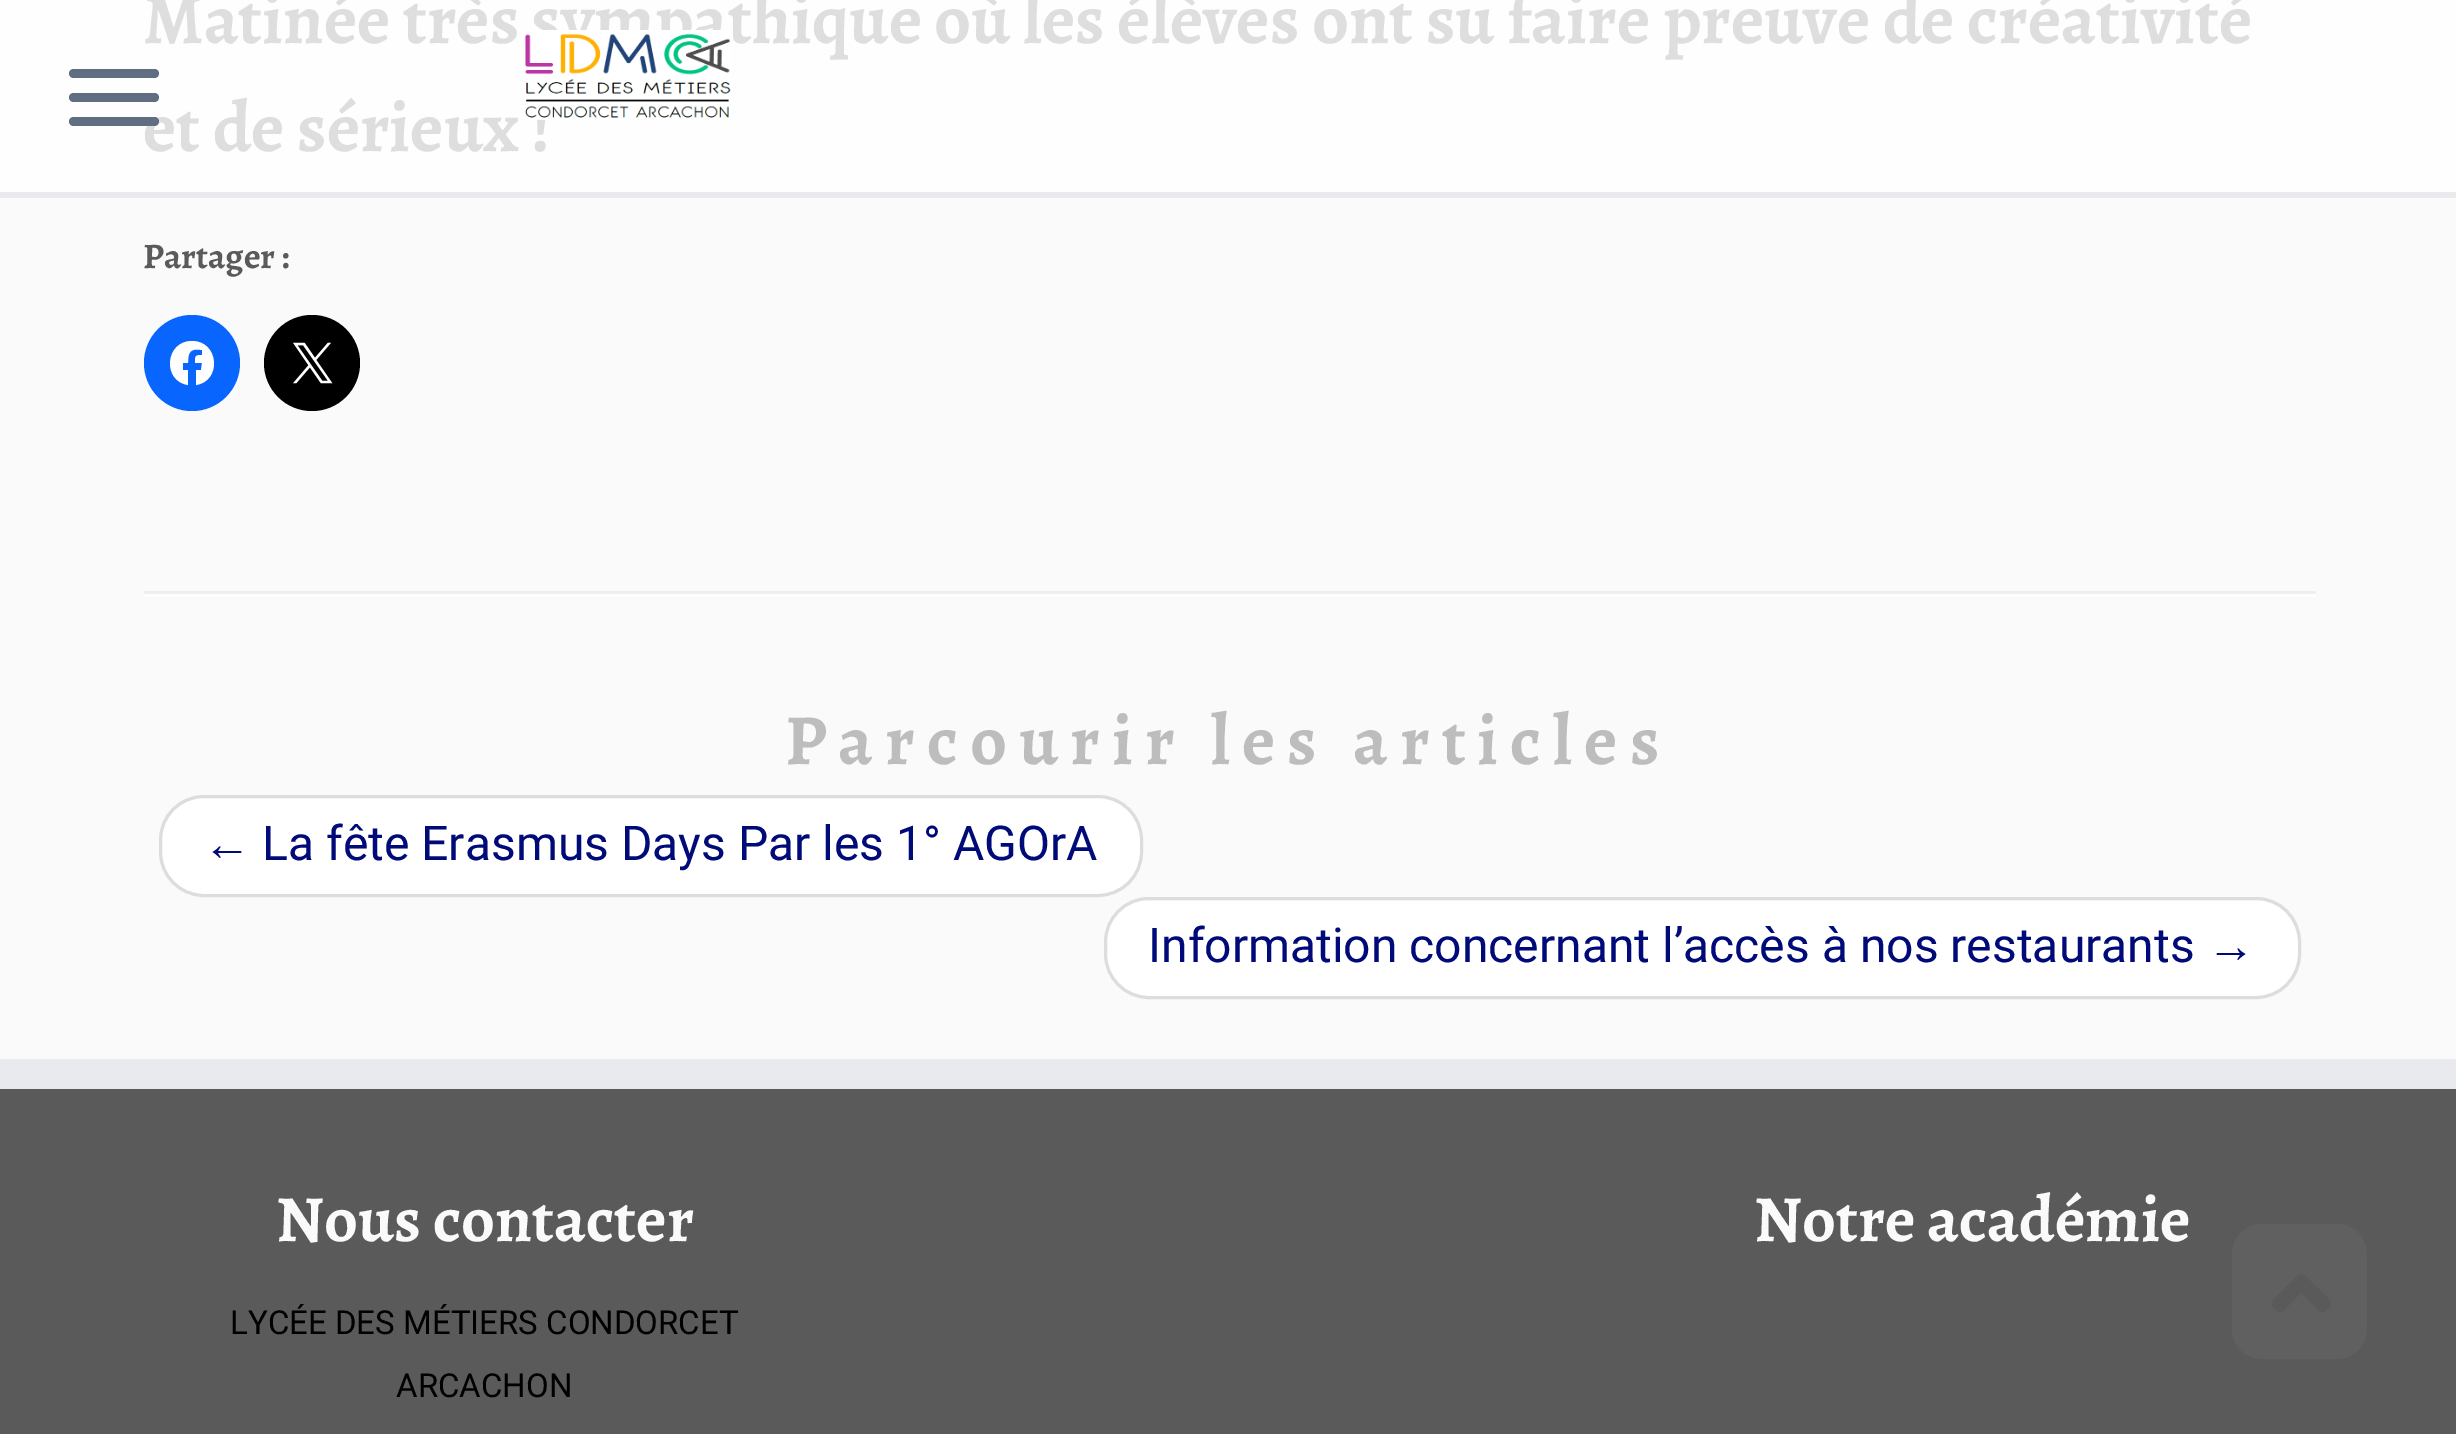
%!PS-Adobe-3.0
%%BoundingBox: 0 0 2456 1434
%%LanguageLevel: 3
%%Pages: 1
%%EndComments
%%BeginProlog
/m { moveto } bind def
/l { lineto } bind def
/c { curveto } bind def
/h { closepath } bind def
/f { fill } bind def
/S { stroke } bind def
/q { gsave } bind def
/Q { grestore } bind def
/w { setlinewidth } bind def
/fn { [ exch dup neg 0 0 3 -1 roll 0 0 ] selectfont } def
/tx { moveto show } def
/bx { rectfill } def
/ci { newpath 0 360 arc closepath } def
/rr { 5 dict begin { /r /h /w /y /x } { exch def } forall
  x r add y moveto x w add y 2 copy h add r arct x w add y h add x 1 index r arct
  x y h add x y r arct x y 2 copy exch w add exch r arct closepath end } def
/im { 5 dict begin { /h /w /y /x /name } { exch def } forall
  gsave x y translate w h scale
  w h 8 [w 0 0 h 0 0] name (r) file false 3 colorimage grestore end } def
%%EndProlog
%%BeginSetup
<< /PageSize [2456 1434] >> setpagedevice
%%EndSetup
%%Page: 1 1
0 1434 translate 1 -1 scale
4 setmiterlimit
0.98 setgray
0 0 2456 1434 bx
0.996 setgray
0 0 2456 192 bx
/Alegreya-Bold 72 fn
0.871 setgray
(Matinée très sympathique où les élèves ont su faire preuve de créativité) 143 43 tx
(et de sérieux !) 143 151 tx
/Alegreya-Bold 36 fn
0.353 setgray
(Partager :) 143 268 tx
0.031 0.4 1 setrgbcolor
192 363 48 ci f
1 setgray
192 341 m 165 341 162 381 188 385 c 188 370 l 183 370 l 183 363 l 188 363 l 188 352 190 348 202 350 c 202 355 l 195 355 195 356 195 363 c 202 363 l 201 370 l 196 370 l 196 385 l 222 381 219 341 192 341 c h f
0 setgray
312 363 48 ci f
(image0.raw) 293 342 40 42 im
0.933 setgray
144 591 2172 3 bx
1 setgray
144 594 2172 3 bx
/Alegreya-Bold 72 fn
0.741 setgray
785 764 m 12 0 (Parcourir les articles) ashow
1 setgray
160.5 796.5 981 99 43.5 rr q f Q
0.867 setgray
3 w
S
/LiberationSerif-Regular 48 fn
0 0.039 0.471 setrgbcolor
(←) 203 860 tx
/Roboto-Regular 48 fn
(La fête Erasmus Days Par les 1° AGOrA) 262 860 tx
1 setgray
1105.5 898.5 1194 99 43.5 rr q f Q
0.867 setgray
S
0 0.039 0.471 setrgbcolor
(Information concernant l’accès à nos restaurants) 1148 962 tx
/LiberationSerif-Regular 48 fn
(→) 2207 962 tx
0.914 0.918 0.933 setrgbcolor
0 192 2456 6 bx
0.373 0.435 0.506 setrgbcolor
69 69 90 9 4.5 rr f
69 93 90 9 4.5 rr f
69 117 90 9 4.5 rr f
(image1.raw) 525 30 206 90 im
0.353 setgray
0 1089 2456 345 bx
0.914 0.918 0.933 setrgbcolor
0 1059 2456 30 bx
/Alegreya-Bold 66 fn
0.98 setgray
(Nous contacter) 276 1241 tx
/Roboto-Regular 33 fn
0 setgray
(LYCÉE DES MÉTIERS CONDORCET) 230 1334 tx
(ARCACHON) 396 1397 tx
/Alegreya-Bold 66 fn
0.98 setgray
(Notre académie) 1754 1241 tx
0.376 setgray
2232 1224 135 135 30 rr f
0.353 setgray
2304 1275 m 2326 1296 l 2328 1299 2333 1302 2330 1306 c 2327 1310 l 2321 1316 2318 1310 2313 1305 c 2301 1293 l 2289 1305 l 2287 1307 2283 1314 2278 1312 c 2274 1308 l 2268 1303 2273 1300 2277 1296 c 2294 1279 l 2296 1277 2300 1271 2304 1275 c h f
showpage
%%EOF
